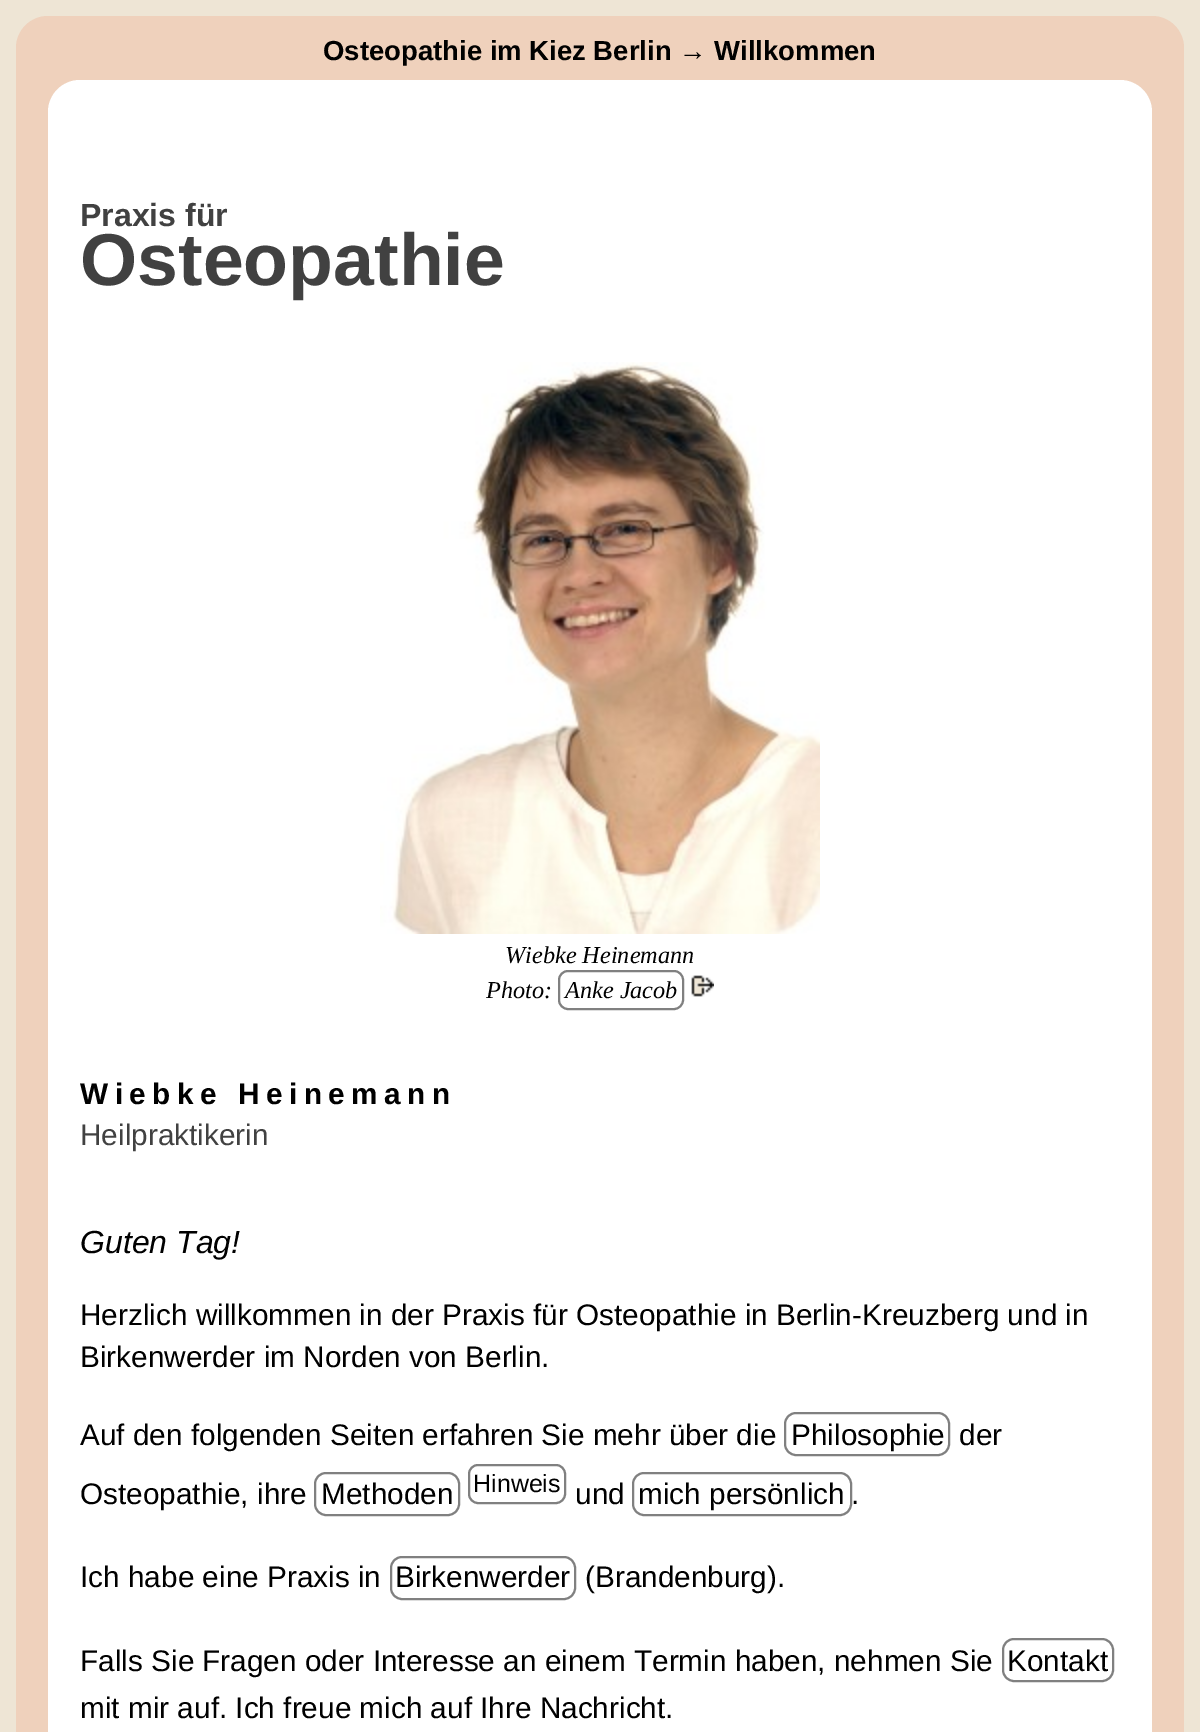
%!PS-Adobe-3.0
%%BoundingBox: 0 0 1200 1732
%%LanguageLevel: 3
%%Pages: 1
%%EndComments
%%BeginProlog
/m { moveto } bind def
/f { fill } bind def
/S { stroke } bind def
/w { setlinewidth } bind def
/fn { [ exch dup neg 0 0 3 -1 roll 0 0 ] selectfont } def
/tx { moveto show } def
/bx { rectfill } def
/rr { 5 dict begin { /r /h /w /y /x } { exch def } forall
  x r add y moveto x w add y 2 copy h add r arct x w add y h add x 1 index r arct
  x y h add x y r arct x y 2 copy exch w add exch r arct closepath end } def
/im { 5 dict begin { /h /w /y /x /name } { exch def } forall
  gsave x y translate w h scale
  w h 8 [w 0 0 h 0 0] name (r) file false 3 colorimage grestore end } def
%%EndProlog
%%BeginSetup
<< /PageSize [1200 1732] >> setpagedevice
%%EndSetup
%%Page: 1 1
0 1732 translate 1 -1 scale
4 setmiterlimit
0.933 0.898 0.835 setrgbcolor
0 0 1200 1732 bx
0.937 0.82 0.737 setrgbcolor
16 16 1168 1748 32 rr f
1 setgray
48 80 1104 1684 32 rr f
/LiberationSans-Bold 27.5 fn
0 setgray
(Osteopathie im Kiez Berlin → Willkommen) 323 60 tx
/LiberationSans-Bold 32 fn
0.255 setgray
(Praxis für) 80 226 tx
/LiberationSans-Bold 73.5 fn
(Osteopathie) 80 285 tx
(image0.raw) 380 362 440 572 im
/LiberationSerif-Italic 24.25 fn
0 setgray
(Wiebke Heinemann) 505 963 tx
(Photo:) 486 998 tx
0.502 setgray
2 w
559 971 124 38 9 rr S
0 setgray
(Anke Jacob) 565 998 tx
(image1.raw) 691 975 23 22 im
/LiberationSans-Bold 29.75 fn
80 1104 m 6.5 0 (Wiebke Heinemann) ashow
/LiberationSans-Regular 29.75 fn
0.255 setgray
(Heilpraktikerin) 80 1145 tx
/LiberationSans-Italic 32 fn
0 setgray
(Guten Tag!) 80 1253 tx
/LiberationSans-Regular 29.75 fn
(Herzlich willkommen in der Praxis für Osteopathie in Berlin-Kreuzberg und in) 80 1325 tx
(Birkenwerder im Norden von Berlin.) 80 1367 tx
(Auf den folgenden Seiten erfahren Sie mehr über die) 80 1445 tx
0.502 setgray
785 1413 164 42 11 rr S
0 setgray
(Philosophie) 791 1445 tx
(der) 959 1445 tx
(Osteopathie, ihre) 80 1504 tx
0.502 setgray
315 1473 144 42 11 rr S
0 setgray
(Methoden) 321 1504 tx
0.502 setgray
469 1465 96 38 9 rr S
/LiberationSans-Regular 25 fn
0 setgray
(Hinweis) 473 1492 tx
/LiberationSans-Regular 29.75 fn
(und) 575 1504 tx
0.502 setgray
633 1473 218 42 11 rr S
0 setgray
(mich persönlich) 638 1504 tx
(.) 851 1504 tx
(Ich habe eine Praxis in) 80 1587 tx
0.502 setgray
391 1557 184 42 11 rr S
0 setgray
(Birkenwerder) 395 1587 tx
(\(Brandenburg\).) 585 1587 tx
(Falls Sie Fragen oder Interesse an einem Termin haben, nehmen Sie) 80 1671 tx
0.502 setgray
1003 1639 110 42 11 rr S
0 setgray
(Kontakt) 1007 1671 tx
(mit mir auf. Ich freue mich auf Ihre Nachricht.) 80 1718 tx
showpage
%%EOF
